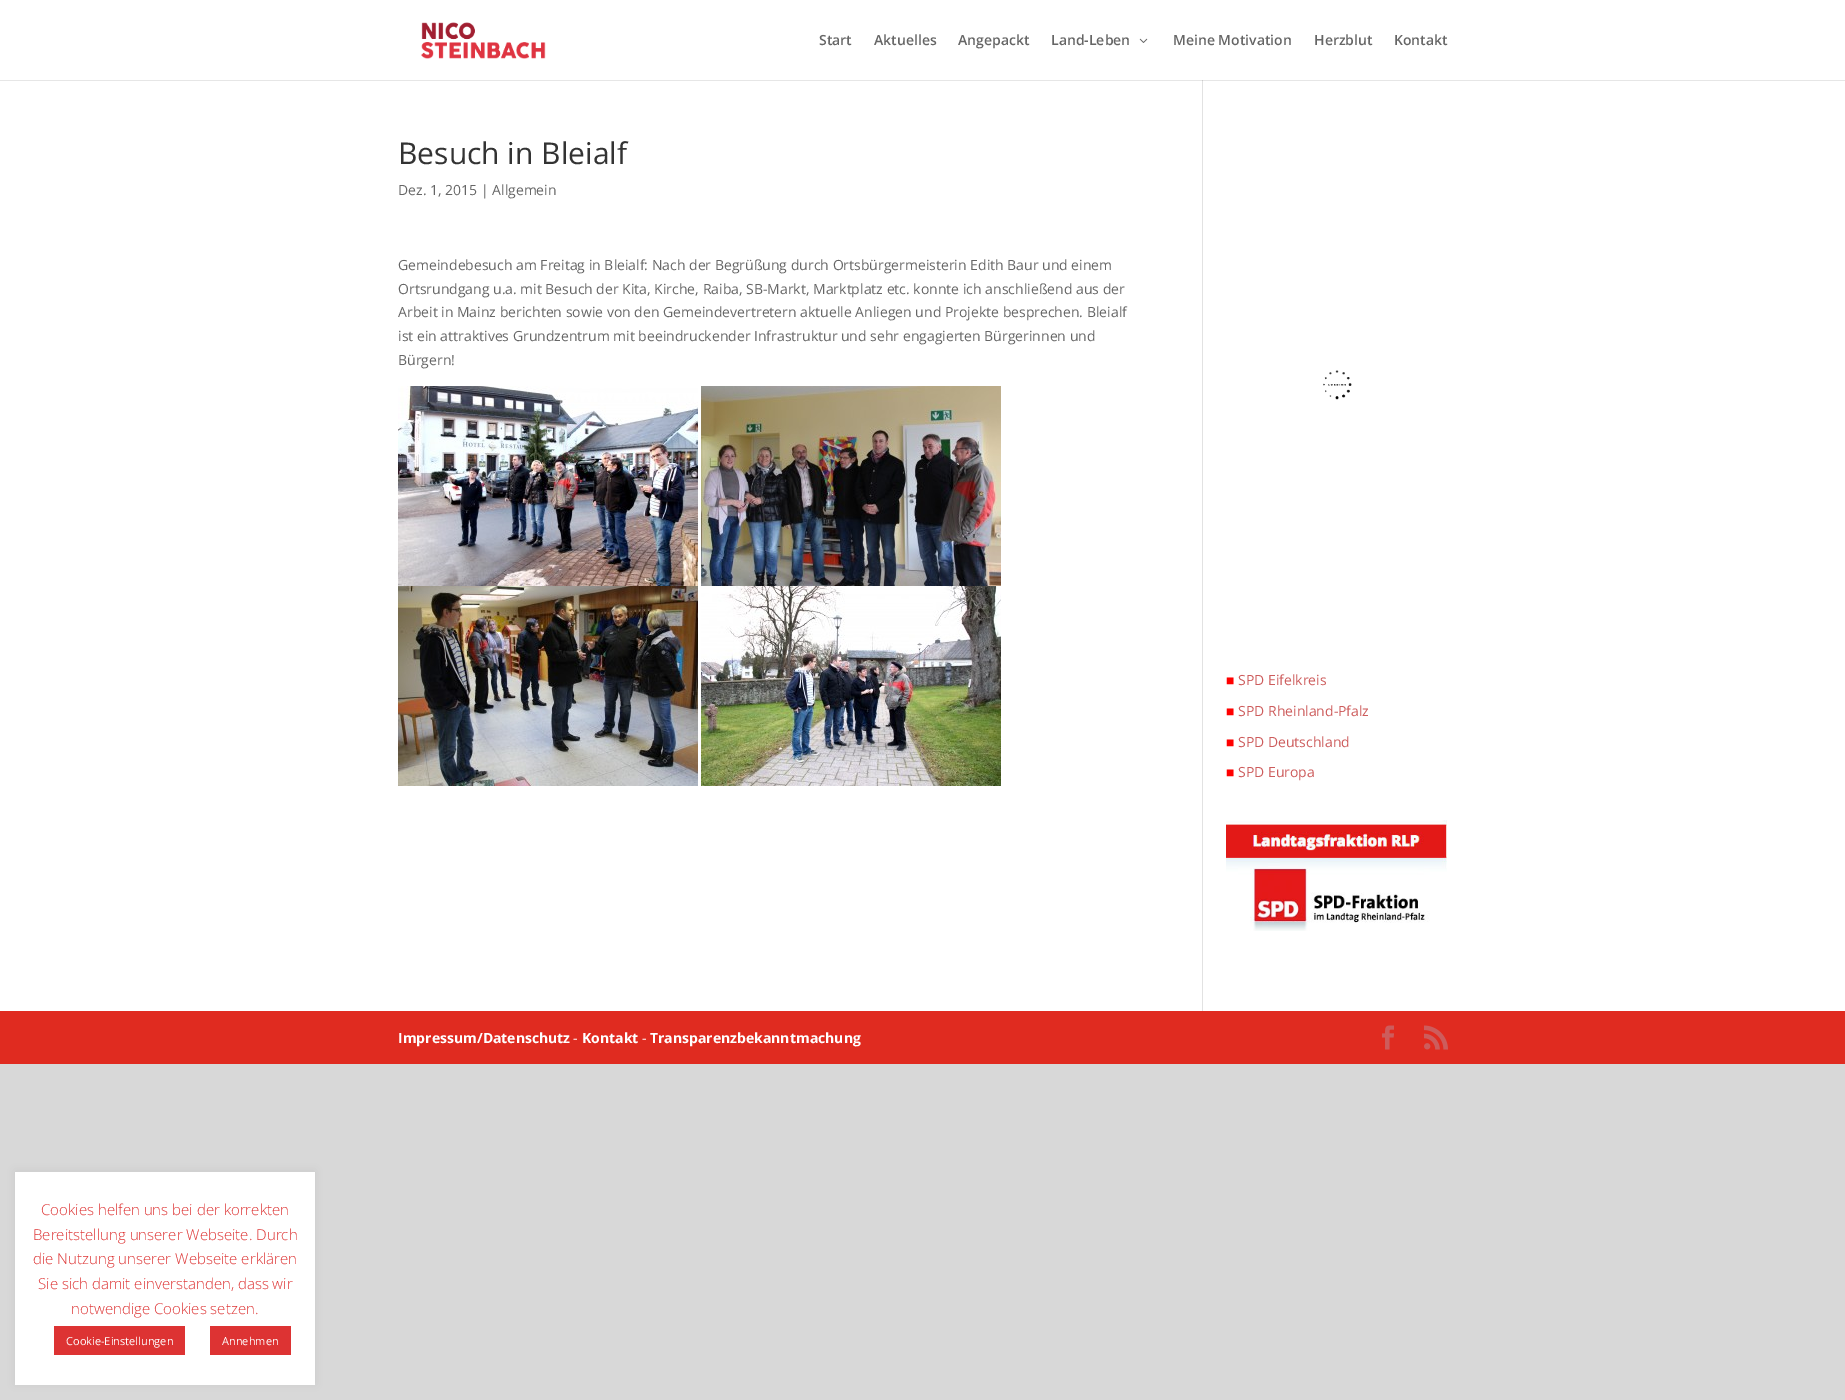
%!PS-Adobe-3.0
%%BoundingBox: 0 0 1845 1400
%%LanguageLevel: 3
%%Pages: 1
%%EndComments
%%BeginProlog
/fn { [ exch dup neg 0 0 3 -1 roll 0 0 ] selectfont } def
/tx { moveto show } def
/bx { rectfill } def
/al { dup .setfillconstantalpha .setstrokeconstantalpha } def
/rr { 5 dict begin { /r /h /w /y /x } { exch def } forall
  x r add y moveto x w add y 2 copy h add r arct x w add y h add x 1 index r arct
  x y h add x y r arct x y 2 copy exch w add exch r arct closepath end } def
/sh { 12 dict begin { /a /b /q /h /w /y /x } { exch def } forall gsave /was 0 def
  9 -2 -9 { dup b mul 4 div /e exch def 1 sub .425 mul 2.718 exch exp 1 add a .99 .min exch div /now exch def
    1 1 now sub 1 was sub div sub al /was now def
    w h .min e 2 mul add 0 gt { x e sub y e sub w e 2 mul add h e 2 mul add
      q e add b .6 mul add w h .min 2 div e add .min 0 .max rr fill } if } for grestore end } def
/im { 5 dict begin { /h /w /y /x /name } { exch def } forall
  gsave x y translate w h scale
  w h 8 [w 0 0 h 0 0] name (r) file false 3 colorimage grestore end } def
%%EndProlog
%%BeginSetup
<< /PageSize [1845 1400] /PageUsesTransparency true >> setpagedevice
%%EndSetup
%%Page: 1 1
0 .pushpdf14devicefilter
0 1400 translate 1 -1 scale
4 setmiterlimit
0.847 setgray
0 0 1845 1400 bx
1 setgray
0 0 1845 80 bx
(image0.raw) 421 22 125 37 im
/OpenSans-SemiBold 14 fn
0.4 setgray
(Start) 819 45 tx
(Aktuelles) 874 45 tx
(Angepackt) 958 45 tx
(Land-Leben) 1051 45 tx
(image1.raw) 1139 38 9 5 im
(Meine Motivation) 1173 45 tx
(Herzblut) 1314 45 tx
(Kontakt) 1394 45 tx
1 setgray
0 81 1845 930 bx
0.902 setgray
0 80 1845 1 bx
0.886 setgray
1202 80 1 931 bx
0.796 setgray
1202 80 1 1 bx
/OpenSans-Regular 30 fn
0.2 setgray
(Besuch in Bleialf) 398 164 tx
/OpenSans-Regular 14 fn
0.4 setgray
(Dez. 1, 2015 | Allgemein) 398 195 tx
(Gemeindebesuch am Freitag in Bleialf: Nach der Begrüßung durch Ortsbürgermeisterin Edith Baur und einem) 398 270 tx
(Ortsrundgang u.a. mit Besuch der Kita, Kirche, Raiba, SB-Markt, Marktplatz etc. konnte ich anschließend aus der) 398 294 tx
(Arbeit in Mainz berichten sowie von den Gemeindevertretern aktuelle Anliegen und Projekte besprechen. Bleialf) 398 317 tx
(ist ein attraktives Grundzentrum mit beeindruckender Infrastruktur und sehr engagierten Bürgerinnen und) 398 341 tx
(Bürgern!) 398 365 tx
(image2.raw) 398 386 300 200 im
(image3.raw) 701 386 300 200 im
(image4.raw) 398 586 300 200 im
(image5.raw) 701 586 300 200 im
(image6.raw) 1323 370 29 30 im
/LiberationSans-Regular 14 fn
1 0 0 setrgbcolor
(■) 1226 685 tx
/OpenSans-Regular 14 fn
0.804 0.361 0.361 setrgbcolor
(SPD Eifelkreis) 1238 685 tx
/LiberationSans-Regular 14 fn
1 0 0 setrgbcolor
(■) 1226 716 tx
/OpenSans-Regular 14 fn
0.804 0.361 0.361 setrgbcolor
(SPD Rheinland-Pfalz) 1238 716 tx
/LiberationSans-Regular 14 fn
1 0 0 setrgbcolor
(■) 1226 747 tx
/OpenSans-Regular 14 fn
0.804 0.361 0.361 setrgbcolor
(SPD Deutschland) 1238 747 tx
/LiberationSans-Regular 14 fn
1 0 0 setrgbcolor
(■) 1226 777 tx
/OpenSans-Regular 14 fn
0.804 0.361 0.361 setrgbcolor
(SPD Europa) 1238 777 tx
(image7.raw) 1226 820 221 111 im
0.878 0.169 0.125 setrgbcolor
0 1011 1845 53 bx
/OpenSans-Bold 14 fn
1 setgray
(Impressum/Datenschutz) 398 1043 tx
/OpenSans-Regular 14 fn
(-) 573 1043 tx
/OpenSans-Bold 14 fn
(Kontakt) 582 1043 tx
/OpenSans-Regular 14 fn
(-) 642 1043 tx
/OpenSans-Bold 14 fn
(Transparenzbekanntmachung) 650 1043 tx
(image8.raw) 1382 1025 12 25 im
(image9.raw) 1424 1025 24 25 im
0.675 0.671 0.671 setrgbcolor
15 1171 300 213 0 5 0.3 sh
1 setgray
15 1172 300 213 bx
/OpenSans-Light 15 fn
0.867 0.2 0.2 setrgbcolor
(Cookies helfen uns bei der korrekten) 41 1215 tx
(Bereitstellung unserer Webseite. Durch) 33 1240 tx
(die Nutzung unserer Webseite erklären) 33 1264 tx
(Sie sich damit einverstanden, dass wir) 38 1289 tx
(notwendige Cookies setzen.) 71 1314 tx
54 1326 131 29 bx
/OpenSans-Regular 11 fn
1 setgray
(Cookie-Einstellungen) 66 1345 tx
0.867 0.2 0.2 setrgbcolor
210 1326 81 29 bx
1 setgray
(Annehmen) 222 1345 tx
.poppdf14devicefilter showpage
%%EOF
